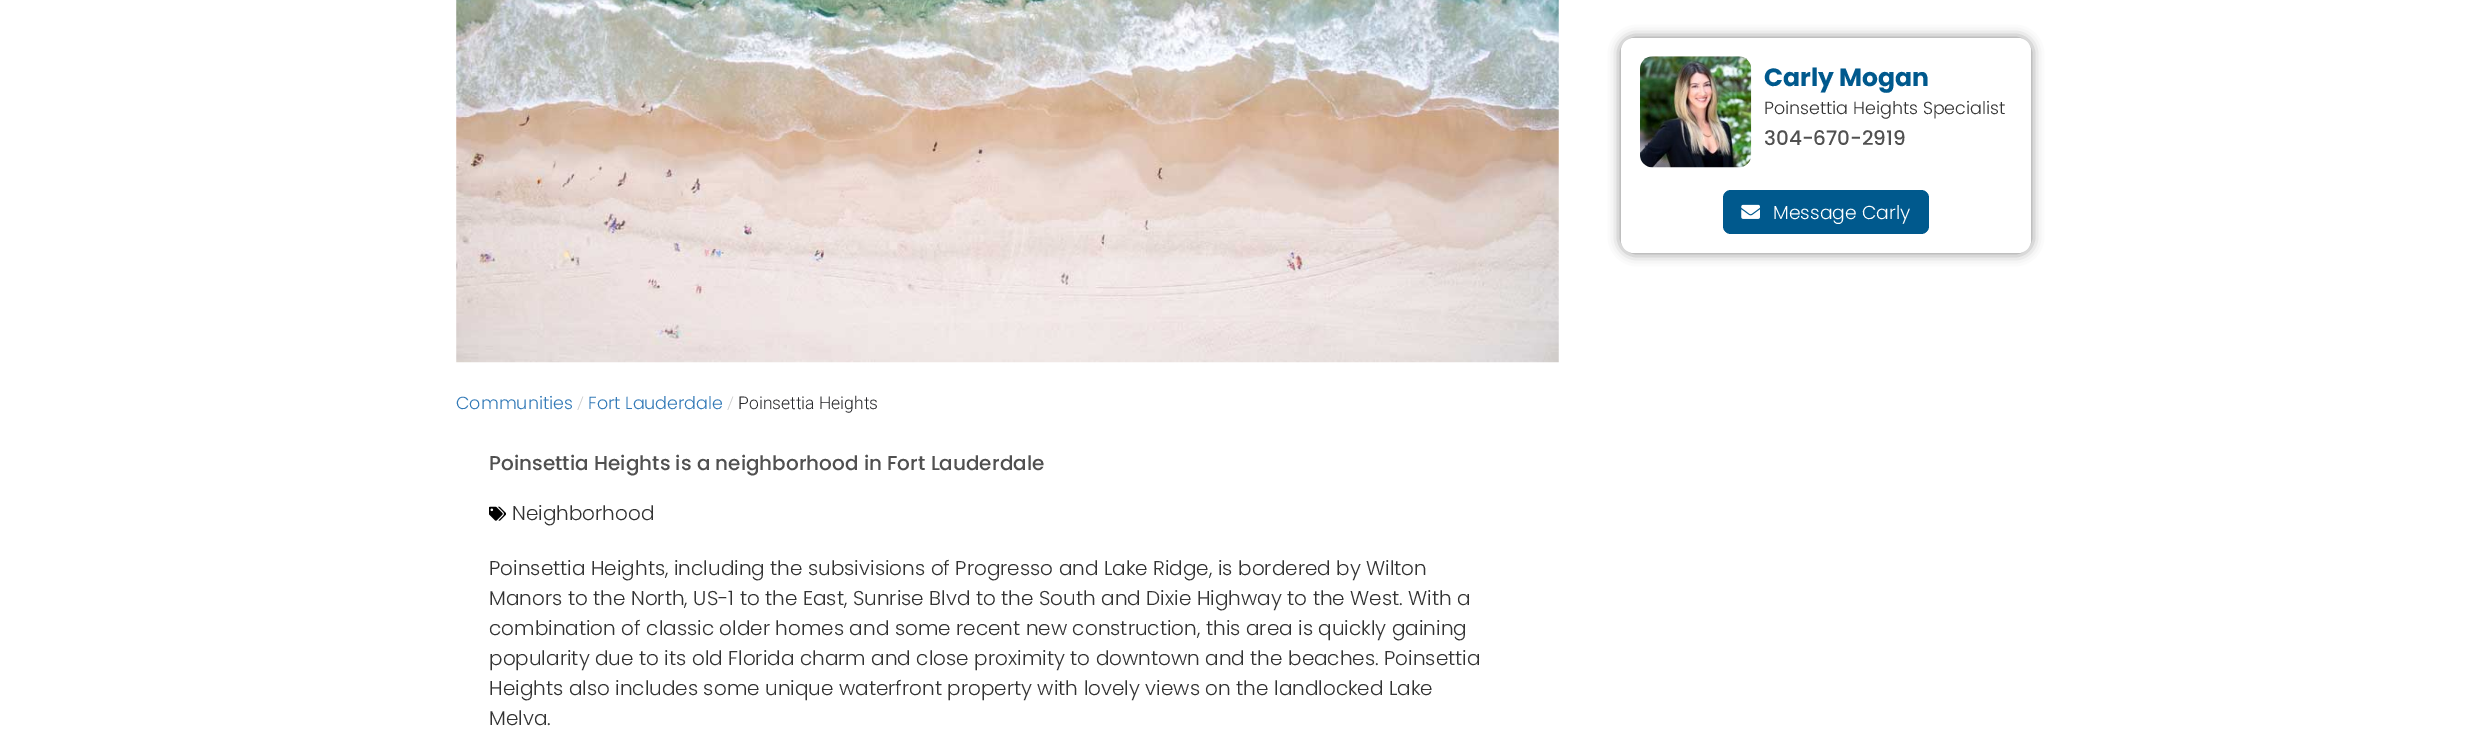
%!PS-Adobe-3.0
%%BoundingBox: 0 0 2486 738
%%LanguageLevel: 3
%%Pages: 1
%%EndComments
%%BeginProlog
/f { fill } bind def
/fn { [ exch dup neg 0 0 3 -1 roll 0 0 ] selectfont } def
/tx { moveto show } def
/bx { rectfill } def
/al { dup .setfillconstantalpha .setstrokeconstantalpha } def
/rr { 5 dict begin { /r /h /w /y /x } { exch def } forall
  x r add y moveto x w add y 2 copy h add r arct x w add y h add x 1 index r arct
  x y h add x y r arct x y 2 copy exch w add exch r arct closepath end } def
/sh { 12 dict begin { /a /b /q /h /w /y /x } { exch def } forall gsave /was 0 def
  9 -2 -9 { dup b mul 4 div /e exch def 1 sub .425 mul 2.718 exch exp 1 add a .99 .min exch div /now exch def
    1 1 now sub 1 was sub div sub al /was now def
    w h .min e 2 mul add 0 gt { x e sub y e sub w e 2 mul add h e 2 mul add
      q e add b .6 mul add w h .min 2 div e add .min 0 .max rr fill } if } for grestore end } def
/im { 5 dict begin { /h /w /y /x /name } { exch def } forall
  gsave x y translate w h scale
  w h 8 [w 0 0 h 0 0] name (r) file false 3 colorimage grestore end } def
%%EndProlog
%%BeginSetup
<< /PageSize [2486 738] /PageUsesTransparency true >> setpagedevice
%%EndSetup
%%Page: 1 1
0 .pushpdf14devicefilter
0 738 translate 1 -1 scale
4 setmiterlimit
1 setgray
0 0 2486 738 bx
0 setgray
1621 38 410 215 13 6 0.5 sh
1 setgray
1621 38 410 215 13 rr f
(image0.raw) 1640 56 112 112 im
/Poppins-Bold 25 fn
0 0.349 0.553 setrgbcolor
(Carly Mogan) 1764 86 tx
/Poppins-Light 17.5 fn
0.2 setgray
(Poinsettia Heights Specialist) 1764 114 tx
/Poppins-Medium 20 fn
0.314 setgray
(304-670-2919) 1764 145 tx
0 0.349 0.553 setrgbcolor
1723 190 206 44 8 rr f
(image1.raw) 1741 204 19 15 im
/Poppins-Light 18.75 fn
1 setgray
(Message Carly) 1773 219 tx
(image2.raw) 456 0 1103 363 im
/Poppins-Light 17.5 fn
0.2 0.478 0.718 setrgbcolor
(Communities) 456 409 tx
/Roboto-Light 17.5 fn
0.8 setgray
(/) 577 409 tx
/Poppins-Light 17.5 fn
0.2 0.478 0.718 setrgbcolor
(Fort Lauderdale) 588 409 tx
/Roboto-Light 17.5 fn
0.8 setgray
(/) 727 409 tx
0.153 0.153 0.165 setrgbcolor
(Poinsettia Heights) 738 409 tx
/Poppins-Medium 20 fn
0.314 setgray
(Poinsettia Heights is a neighborhood in Fort Lauderdale) 489 470 tx
(image3.raw) 489 506 17 15 im
/Poppins-Light 20 fn
0.2 setgray
(Neighborhood) 512 520 tx
(Poinsettia Heights, including the subsivisions of Progresso and Lake Ridge, is bordered by Wilton) 489 575 tx
(Manors to the North, US-1 to the East, Sunrise Blvd to the South and Dixie Highway to the West. With a) 489 605 tx
(combination of classic older homes and some recent new construction, this area is quickly gaining) 489 635 tx
(popularity due to its old Florida charm and close proximity to downtown and the beaches. Poinsettia) 489 665 tx
(Heights also includes some unique waterfront property with lovely views on the landlocked Lake) 489 695 tx
(Melva.) 489 725 tx
.poppdf14devicefilter showpage
%%EOF
